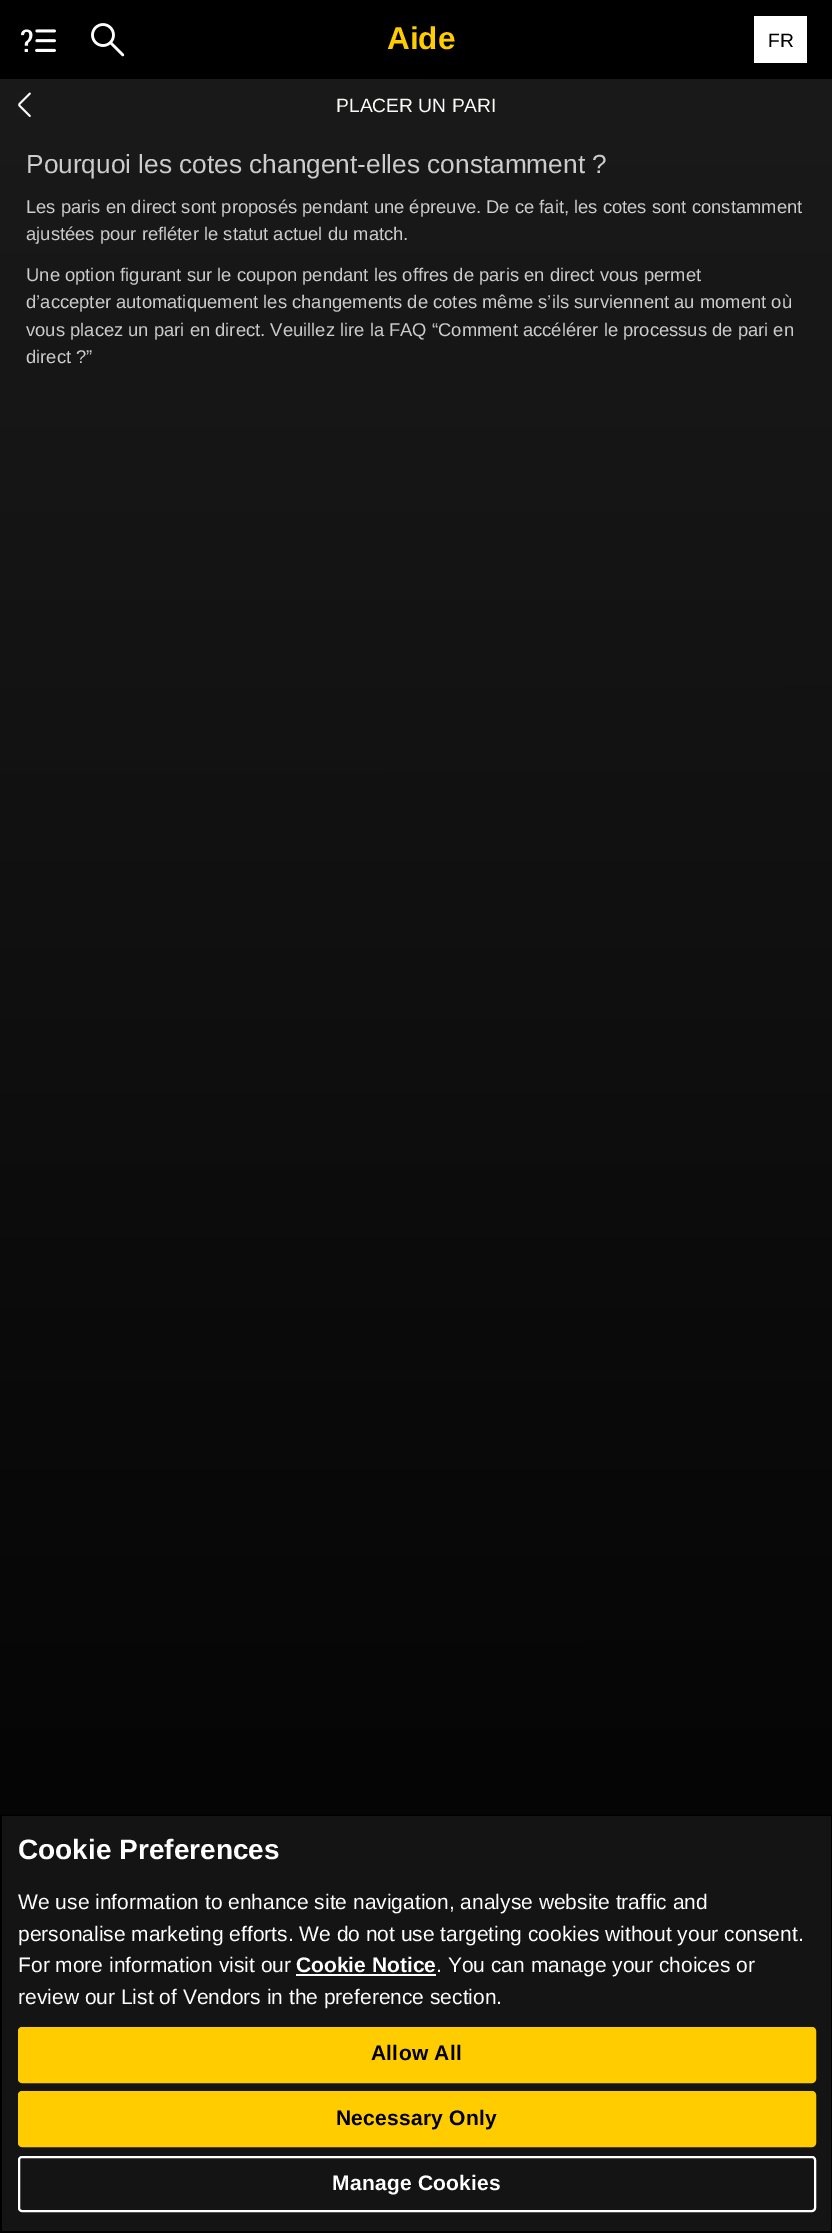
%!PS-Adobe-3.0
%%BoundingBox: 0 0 832 2233
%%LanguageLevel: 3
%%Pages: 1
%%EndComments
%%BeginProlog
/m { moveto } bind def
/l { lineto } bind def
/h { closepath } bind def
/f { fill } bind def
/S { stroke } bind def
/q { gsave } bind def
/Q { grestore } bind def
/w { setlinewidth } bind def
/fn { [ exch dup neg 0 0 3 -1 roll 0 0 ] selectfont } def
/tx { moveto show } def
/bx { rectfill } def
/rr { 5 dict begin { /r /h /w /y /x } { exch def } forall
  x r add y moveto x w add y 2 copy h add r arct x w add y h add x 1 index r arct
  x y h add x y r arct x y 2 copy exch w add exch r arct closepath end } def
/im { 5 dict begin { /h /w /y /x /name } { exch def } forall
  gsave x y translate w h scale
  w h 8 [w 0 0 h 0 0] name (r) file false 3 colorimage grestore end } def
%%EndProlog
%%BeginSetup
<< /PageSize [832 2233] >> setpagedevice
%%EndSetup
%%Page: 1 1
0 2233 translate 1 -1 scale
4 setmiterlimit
1 setgray
0 0 832 2233 bx
0 setgray
0 0 832 79 bx
(image0.raw) 21 29 35 23 im
(image1.raw) 91 23 34 34 im
/LiberationSans-Bold 31.5 fn
1 0.8 0 setrgbcolor
(Aide) 387 49 tx
1 setgray
754 16 53 47 bx
/LiberationSans-Regular 19.25 fn
0 setgray
(FR) 768 47 tx
q 0 79 m 832 79 l 832 1815 l 0 1815 l h clip newpath
<< /ShadingType 2 /ColorSpace /DeviceRGB /Coords [416 79 417 2233] /Extend [true true] /Function << /FunctionType 2 /Domain [0 1] /C0 [0.102 0.102 0.102] /C1 [0 0 0] /N 1 >> >> shfill Q
(image2.raw) 18 92 13 25 im
0.984 0.98 0.973 setrgbcolor
(PLACER UN PARI) 336 112 tx
/LiberationSans-Regular 26.25 fn
0.8 setgray
(Pourquoi les cotes changent-elles constamment ?) 26 173 tx
/LiberationSans-Regular 18.4 fn
(Les paris en direct sont proposés pendant une épreuve. De ce fait, les cotes sont constamment) 26 213 tx
(ajustées pour refléter le statut actuel du match.) 26 240 tx
(Une option figurant sur le coupon pendant les offres de paris en direct vous permet) 26 281 tx
(d’accepter automatiquement les changements de cotes même s’ils surviennent au moment où) 26 308 tx
(vous placez un pari en direct. Veuillez lire la FAQ “Comment accélérer le processus de pari en) 26 336 tx
(direct ?”) 26 363 tx
0.078 setgray
2 1816 829 415 bx
q
0 1815 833 418 rectclip
0 setgray
-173 1642 m 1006 1642 l 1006 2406 l -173 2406 l h -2 1813 m 831 1813 l 831 2231 l -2 2231 l h eofill
-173 1642 m 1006 1642 l 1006 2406 l -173 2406 l h 2 1816 m 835 1816 l 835 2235 l 2 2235 l h eofill
Q
/LiberationSans-Bold 28 fn
1 setgray
(Cookie Preferences) 18 1859 tx
/LiberationSans-Regular 21 fn
(We use information to enhance site navigation, analyse website traffic and) 18 1909 tx
(personalise marketing efforts. We do not use targeting cookies without your consent.) 18 1941 tx
(For more information visit our) 18 1972 tx
/LiberationSans-Bold 21 fn
(Cookie Notice) 296 1972 tx
296 1974 140 2 bx
/LiberationSans-Regular 21 fn
(. You can manage your choices or) 436 1972 tx
(review our List of Vendors in the preference section.) 18 2004 tx
1 0.8 0 setrgbcolor
19 2028 796 54 3 rr q f Q
2 w
S
/LiberationSans-Bold 21 fn
0 setgray
371 2060 m 0.25 0 (Allow All) ashow
1 0.8 0 setrgbcolor
19 2092 796 54 3 rr q f Q
S
0 setgray
336 2125 m 0.25 0 (Necessary Only) ashow
1 setgray
19 2157 796 54 3 rr S
332 2190 m 0.25 0 (Manage Cookies) ashow
showpage
%%EOF
